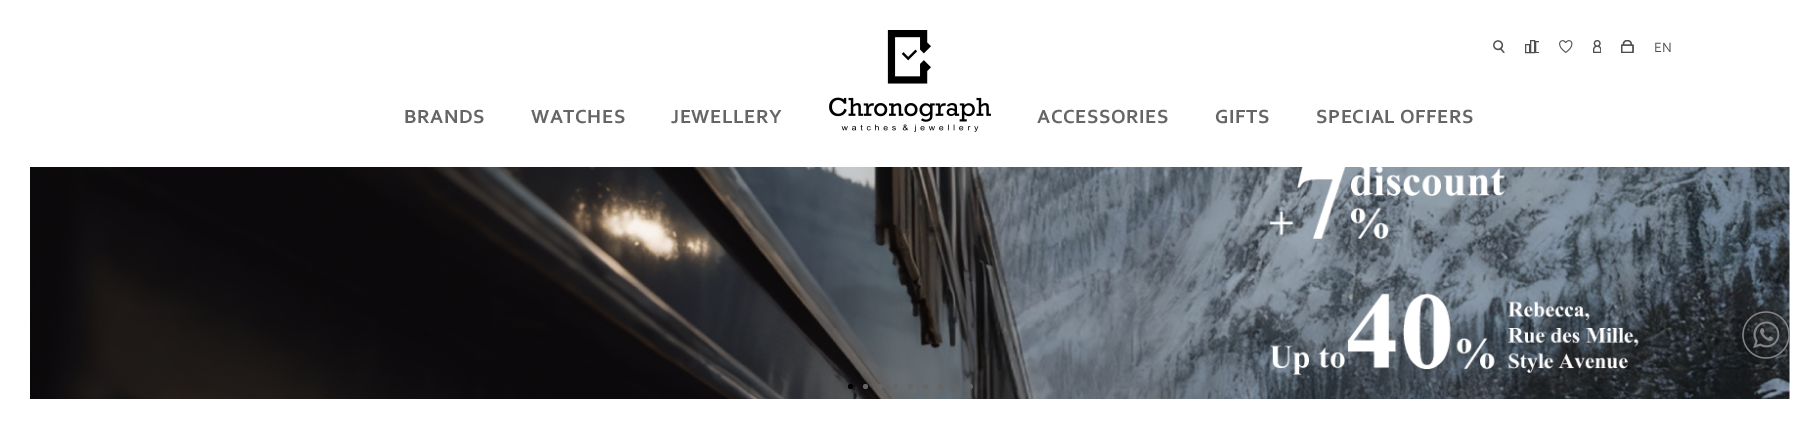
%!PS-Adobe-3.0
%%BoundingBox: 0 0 1820 429
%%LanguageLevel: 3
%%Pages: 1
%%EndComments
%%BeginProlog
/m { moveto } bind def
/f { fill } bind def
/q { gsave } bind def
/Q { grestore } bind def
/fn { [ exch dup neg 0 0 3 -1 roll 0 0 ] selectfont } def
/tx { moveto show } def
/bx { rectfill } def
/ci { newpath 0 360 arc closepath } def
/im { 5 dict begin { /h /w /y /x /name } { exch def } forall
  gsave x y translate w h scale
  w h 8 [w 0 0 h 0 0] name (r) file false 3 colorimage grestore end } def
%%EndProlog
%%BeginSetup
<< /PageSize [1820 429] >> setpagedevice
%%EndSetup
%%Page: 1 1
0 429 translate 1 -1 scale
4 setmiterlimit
1 setgray
0 0 1820 429 bx
(image0.raw) 829 30 162 102 im
(image1.raw) 1493 40 12 13 im
0.306 setgray
1525.5 44.5 4 8 rectstroke
1530.5 40.5 4 12 rectstroke
q
1525 40 14 13 rectclip
1535.5 41.5 4 11 rectstroke
Q
(image2.raw) 1559 40 14 13 im
(image3.raw) 1593 40 8 13 im
(image4.raw) 1621 40 13 13 im
/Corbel-Regular 14 fn
(EN) 1654 52 tx
/Corbel-Bold 20 fn
0.396 setgray
404 123 m 0.5 0 (BRANDS) ashow
531 123 m 0.5 0 (WATCHES) ashow
671 123 m 0.5 0 (JEWELLERY) ashow
1037 123 m 0.5 0 (ACCESSORIES) ashow
1215 123 m 0.5 0 (GIFTS) ashow
1316 123 m 0.5 0 (SPECIAL OFFERS) ashow
(image5.raw) 30 167 1760 232 im
0 setgray
850.5 386.5 2.5 ci f
0.396 setgray
865.5 386.5 2.5 ci f
880.5 386.5 2.5 ci f
895.5 386.5 2.5 ci f
910.5 386.5 2.5 ci f
925.5 386.5 2.5 ci f
940.5 386.5 2.5 ci f
955.5 386.5 2.5 ci f
970.5 386.5 2.5 ci f
(image6.raw) 1742 311 48 48 im
showpage
%%EOF
